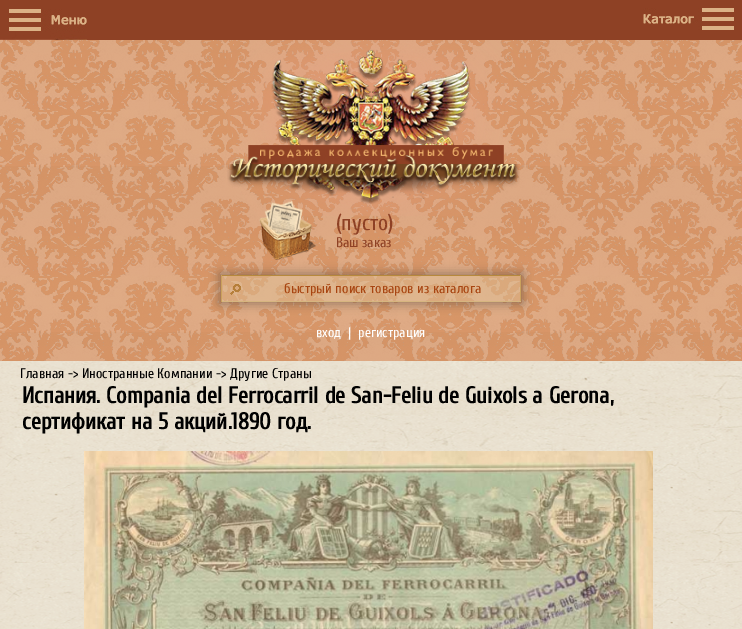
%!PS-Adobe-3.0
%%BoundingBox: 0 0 742 629
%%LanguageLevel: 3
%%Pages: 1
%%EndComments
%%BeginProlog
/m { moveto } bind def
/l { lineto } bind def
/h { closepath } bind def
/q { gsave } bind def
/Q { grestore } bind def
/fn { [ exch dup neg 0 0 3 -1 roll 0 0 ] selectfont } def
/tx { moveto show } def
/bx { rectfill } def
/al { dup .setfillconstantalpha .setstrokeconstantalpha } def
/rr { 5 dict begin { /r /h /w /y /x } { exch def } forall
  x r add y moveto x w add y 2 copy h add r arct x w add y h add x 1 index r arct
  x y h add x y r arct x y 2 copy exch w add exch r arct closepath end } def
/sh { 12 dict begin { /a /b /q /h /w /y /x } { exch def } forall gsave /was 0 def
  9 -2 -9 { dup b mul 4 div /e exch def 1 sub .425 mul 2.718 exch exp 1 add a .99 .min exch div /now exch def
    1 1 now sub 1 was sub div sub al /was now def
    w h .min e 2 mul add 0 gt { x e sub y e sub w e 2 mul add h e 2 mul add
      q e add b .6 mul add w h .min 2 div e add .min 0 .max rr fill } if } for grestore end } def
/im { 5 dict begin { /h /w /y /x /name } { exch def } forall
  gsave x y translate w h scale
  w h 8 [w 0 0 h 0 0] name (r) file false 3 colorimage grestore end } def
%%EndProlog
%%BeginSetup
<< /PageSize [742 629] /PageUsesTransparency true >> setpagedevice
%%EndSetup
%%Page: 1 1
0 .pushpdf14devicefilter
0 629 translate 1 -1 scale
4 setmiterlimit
1 setgray
0 0 742 629 bx
(image0.raw) 0 40 742 321 im
0.557 0.255 0.145 setrgbcolor
0 0 742 40 bx
(image1.raw) 0 9 87 31 im
(image2.raw) 643 8 91 22 im
(image3.raw) 227 40 293 176 im
(image4.raw) 259 200 57 60 im
/Cuprum-Regular 22 fn
(\(пусто\)) 336 230 tx
/Cuprum-Regular 14 fn
(Ваш заказ) 336 247 tx
q
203 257 m 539 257 l 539 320 l 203 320 l h 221 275 m 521 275 l 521 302 l 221 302 l h eoclip newpath
0.196 setgray
219 273 304 31 0 5 0.4 sh
Q
0.4 al
0.875 0.776 0.612 setrgbcolor
222 276 298 25 bx
1 al
(image5.raw) 230 284 11 11 im
0.718 0.537 0.235 setrgbcolor
221 275 300 1 bx
0.792 0.631 0.361 setrgbcolor
520 275 1 27 bx
0.839 0.71 0.498 setrgbcolor
221 301 300 1 bx
0.792 0.631 0.361 setrgbcolor
221 275 1 27 bx
0.659 0.271 0.067 setrgbcolor
(быстрый поиск товаров из каталога) 284 293 tx
1 setgray
(вход) 316 337 tx
(|) 348 337 tx
(регистрация) 358 337 tx
(image6.raw) 0 361 742 268 im
0 setgray
(Главная -> Иностранные Компании -> Другие Страны) 20 378 tx
/Cuprum-Bold 23 fn
(Испания. Сompania del Ferrocarril de San-Feliu de Guixols a Gerona,) 22 403 tx
(сертификат на 5 акций.1890 год.) 22 429 tx
(image7.raw) 84 451 569 178 im
.poppdf14devicefilter showpage
%%EOF
